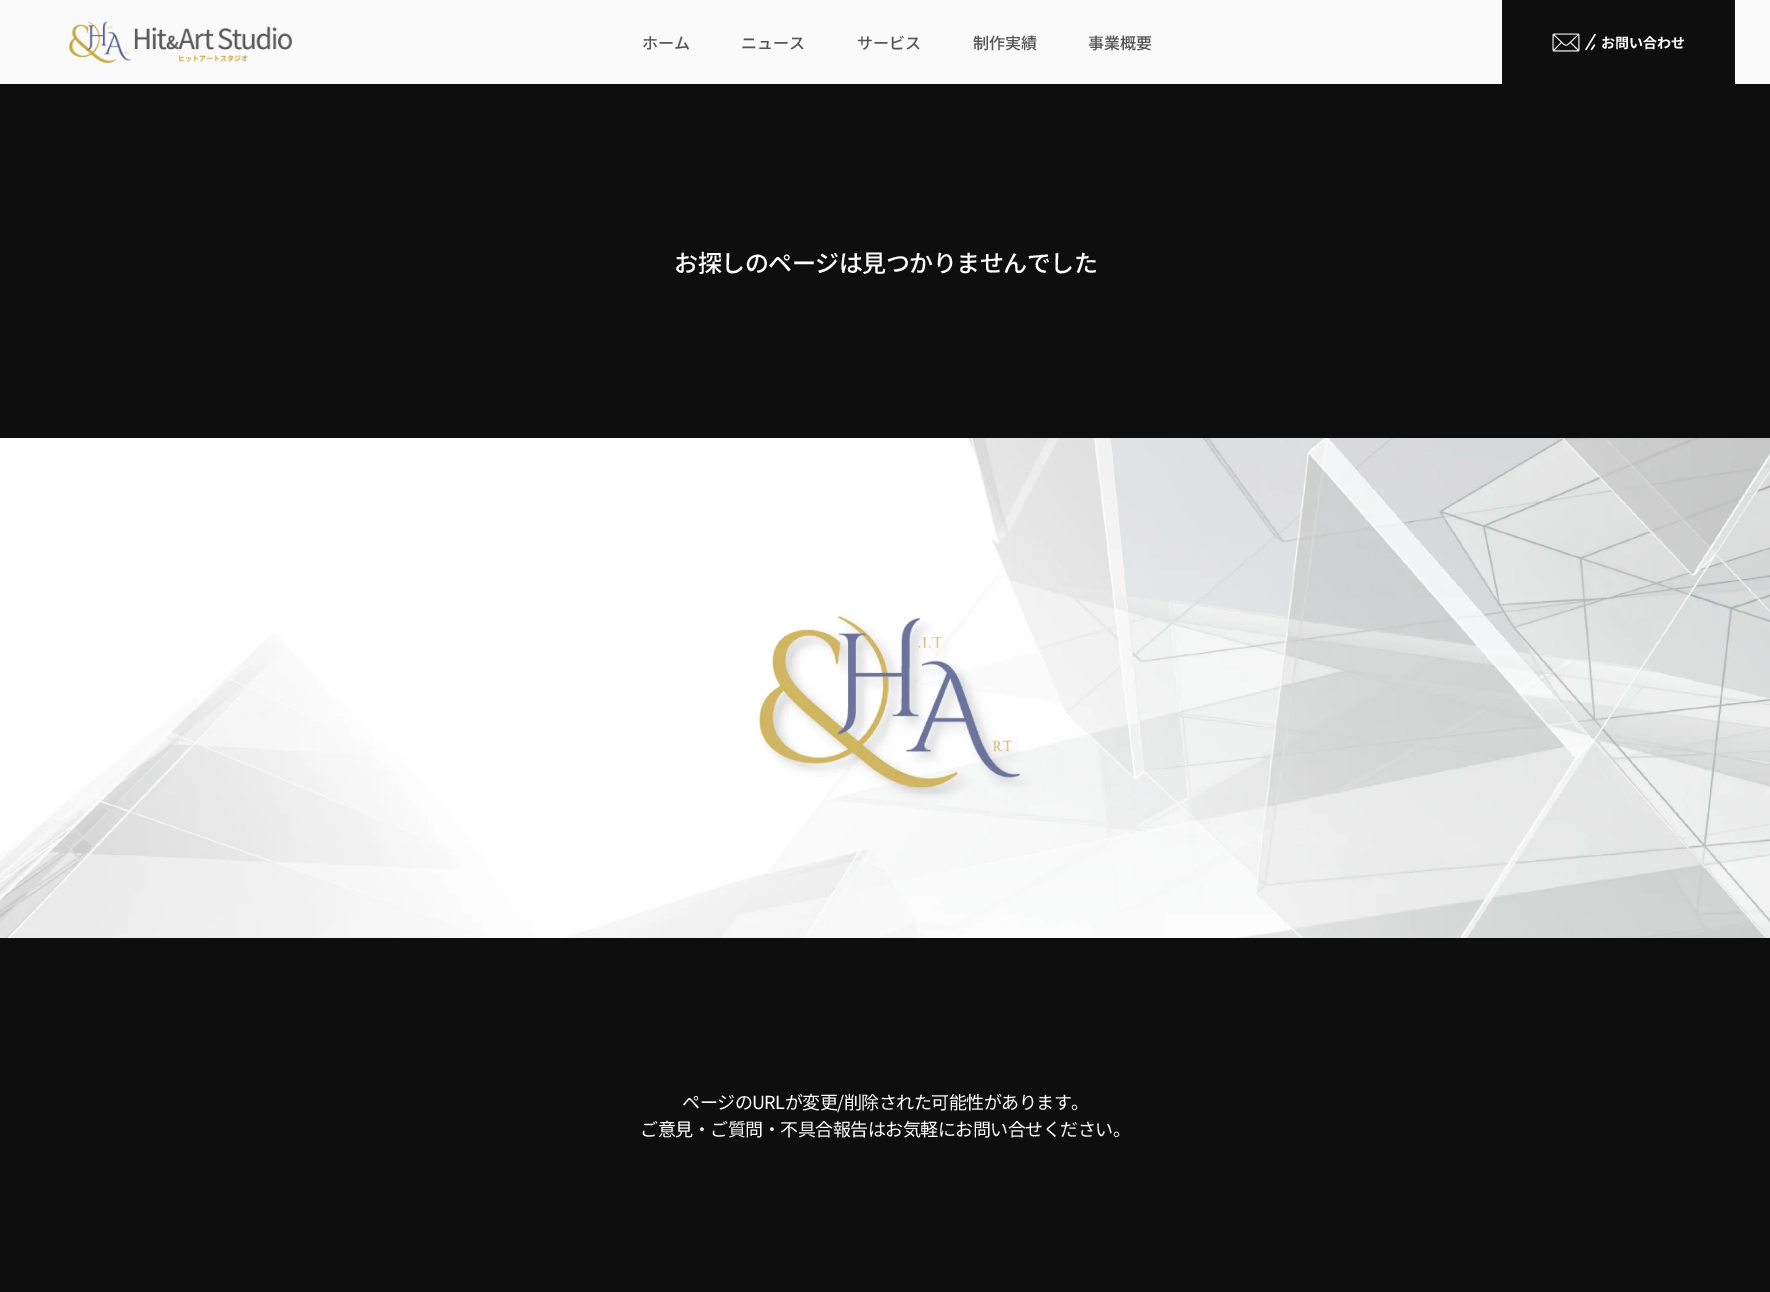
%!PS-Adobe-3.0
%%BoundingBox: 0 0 1770 1292
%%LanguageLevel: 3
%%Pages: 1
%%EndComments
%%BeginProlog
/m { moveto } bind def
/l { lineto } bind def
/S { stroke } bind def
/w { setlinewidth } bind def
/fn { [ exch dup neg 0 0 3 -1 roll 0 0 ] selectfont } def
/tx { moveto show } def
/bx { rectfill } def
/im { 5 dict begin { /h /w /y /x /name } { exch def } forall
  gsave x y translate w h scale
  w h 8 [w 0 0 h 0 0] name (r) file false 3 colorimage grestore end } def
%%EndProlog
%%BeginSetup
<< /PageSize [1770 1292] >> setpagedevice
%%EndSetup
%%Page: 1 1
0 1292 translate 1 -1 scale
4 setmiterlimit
0.055 setgray
0 0 1770 1292 bx
0.98 setgray
0 0 1770 84 bx
(image0.raw) 69 21 223 42 im
/NotoSansJP-Medium 16 fn
0.329 setgray
(ホーム) 642 49 tx
(ニュース) 741 49 tx
(サービス) 857 49 tx
(制作実績) 973 49 tx
(事業概要) 1088 49 tx
0.055 setgray
1502 0 233 84 bx
(image1.raw) 1552 33 28 19 im
0.98 setgray
1.3 w
1 setlinecap
1591.5 49.5 m 1594.5 45 l 1586 49.5 m 1595 34.5 l S
/NotoSansJP-Bold 14 fn
1 setgray
(お問い合わせ) 1601 48 tx
/NotoSansJP-Medium 24 fn
674 272 m -0.5 0 (お探しのページは見つかりませんでした) ashow
(image2.raw) 0 438 1770 500 im
/NotoSansJP-Regular 18 fn
682 1109 m -0.5 0 (ページのURLが変更/削除された可能性があります。) ashow
640 1136 m -0.5 0 (ご意見・ご質問・不具合報告はお気軽にお問い合せください。) ashow
showpage
%%EOF
